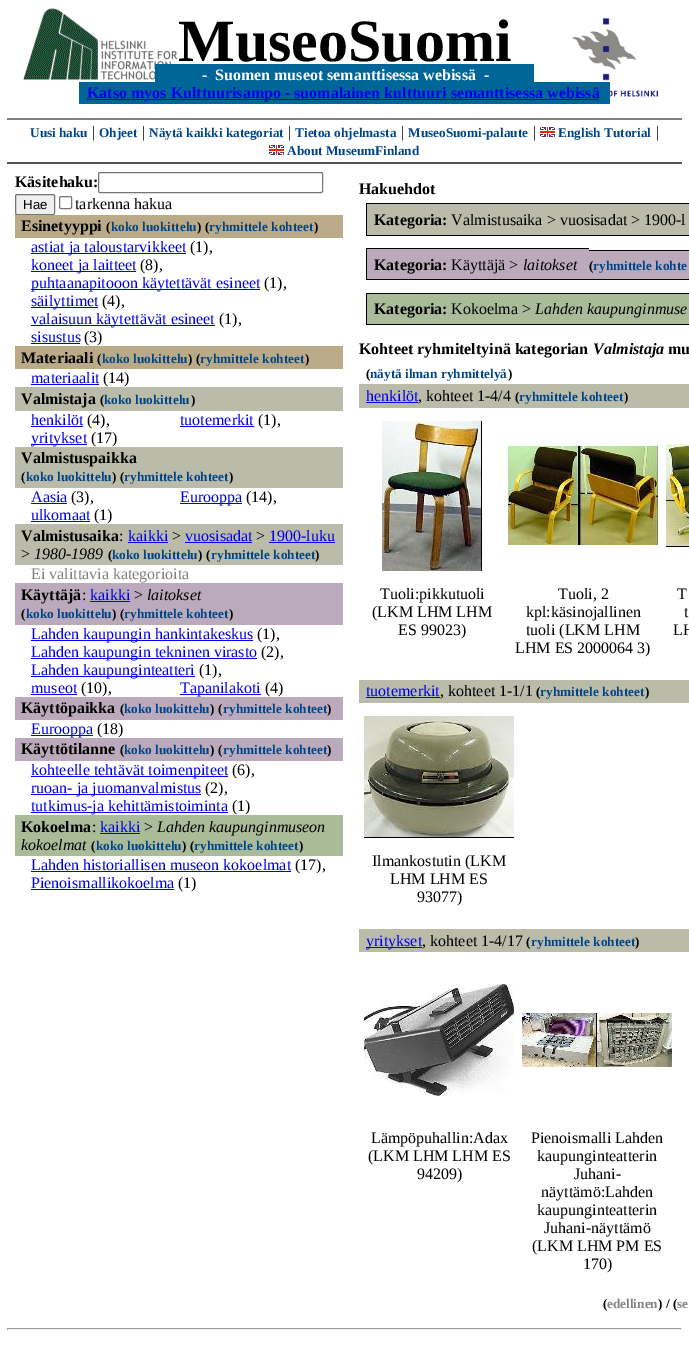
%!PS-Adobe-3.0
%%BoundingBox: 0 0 689 1370
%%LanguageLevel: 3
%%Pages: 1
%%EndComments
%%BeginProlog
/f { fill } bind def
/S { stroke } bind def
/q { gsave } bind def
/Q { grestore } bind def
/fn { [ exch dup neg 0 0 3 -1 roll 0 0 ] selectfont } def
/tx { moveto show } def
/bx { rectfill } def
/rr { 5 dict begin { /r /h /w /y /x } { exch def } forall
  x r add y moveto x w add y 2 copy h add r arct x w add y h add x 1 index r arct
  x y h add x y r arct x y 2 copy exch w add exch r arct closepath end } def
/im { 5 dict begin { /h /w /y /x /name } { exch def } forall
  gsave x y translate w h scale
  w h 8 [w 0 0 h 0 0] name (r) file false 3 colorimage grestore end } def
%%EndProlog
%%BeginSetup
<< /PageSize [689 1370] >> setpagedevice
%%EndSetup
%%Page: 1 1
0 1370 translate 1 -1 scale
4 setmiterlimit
1 setgray
0 0 689 1370 bx
(image0.raw) 23 8 155 72 im
/LiberationSerif-Bold 60 fn
0 setgray
(MuseoSuomi) 178 61 tx
(image1.raw) 572 18 86 79 im
0 0.4 0.6 setrgbcolor
155 64 379 18 bx
/LiberationSerif-Bold 16 fn
1 setgray
(-) 202 80 tx
(Suomen museot semanttisessa webissä) 215 80 tx
(-) 484 80 tx
0 0.4 0.6 setrgbcolor
79 82 531 22 bx
0 0 0.933 setrgbcolor
87 99 512 1 bx
(Katso myos Kulttuurisampo - suomalainen kulttuuri semanttisessa webissä) 87 98 tx
0.502 setgray
7 118 675 2 bx
0.333 setgray
7 162 675 2 bx
/LiberationSerif-Bold 13.25 fn
0 0.267 0.533 setrgbcolor
(Uusi haku) 30 137 tx
/LiberationSerif-Regular 16 fn
0 setgray
(|) 92 137 tx
/LiberationSerif-Bold 13.25 fn
0 0.267 0.533 setrgbcolor
(Ohjeet) 99 137 tx
/LiberationSerif-Regular 16 fn
0 setgray
(|) 142 137 tx
/LiberationSerif-Bold 13.25 fn
0 0.267 0.533 setrgbcolor
(Näytä kaikki kategoriat) 149 137 tx
/LiberationSerif-Regular 16 fn
0 setgray
(|) 288 137 tx
/LiberationSerif-Bold 13.25 fn
0 0.267 0.533 setrgbcolor
(Tietoa ohjelmasta) 295 137 tx
/LiberationSerif-Regular 16 fn
0 setgray
(|) 401 137 tx
/LiberationSerif-Bold 13.25 fn
0 0.267 0.533 setrgbcolor
(MuseoSuomi-palaute) 408 137 tx
/LiberationSerif-Regular 16 fn
0 setgray
(|) 533 137 tx
(image2.raw) 540 127 15 10 im
/LiberationSerif-Bold 13.25 fn
0 0.267 0.533 setrgbcolor
(English Tutorial) 558 137 tx
/LiberationSerif-Regular 16 fn
0 setgray
(|) 656 137 tx
(image2.raw) 269 145 15 10 im
/LiberationSerif-Bold 13.25 fn
0 0.267 0.533 setrgbcolor
(About MuseumFinland) 287 155 tx
/LiberationSerif-Bold 16 fn
0 setgray
(Käsitehaku:) 15 187 tx
0.463 setgray
98.5 172.5 224 20 1.5 rr S
0.937 setgray
15.5 194.5 39 20 1.5 rr q f Q
0.463 setgray
S
/LiberationSans-Regular 13.25 fn
0 setgray
(Hae) 23 209 tx
0.463 setgray
59.5 196.5 12 12 1.5 rr S
/LiberationSerif-Regular 16 fn
0 setgray
(tarkenna hakua) 75 209 tx
0.733 0.667 0.533 setrgbcolor
15 215 328 23 bx
/LiberationSerif-Bold 16 fn
0 setgray
(Esinetyyppi) 21 231 tx
/LiberationSerif-Bold 13.25 fn
(\() 106 231 tx
0 0.267 0.533 setrgbcolor
(koko luokittelu) 111 231 tx
0 setgray
(\) \() 197 231 tx
0 0.267 0.533 setrgbcolor
(ryhmittele kohteet) 209 231 tx
0 setgray
(\)) 314 231 tx
0 0 0.933 setrgbcolor
31 253 155 1 bx
/LiberationSerif-Regular 16 fn
(astiat ja taloustarvikkeet) 31 252 tx
0 setgray
(\(1\),) 190 252 tx
0 0 0.933 setrgbcolor
31 271 105 1 bx
(koneet ja laitteet) 31 270 tx
0 setgray
(\(8\),) 140 270 tx
0 0 0.933 setrgbcolor
31 289 229 1 bx
(puhtaanapitooon käytettävät esineet) 31 288 tx
0 setgray
(\(1\),) 264 288 tx
0 0 0.933 setrgbcolor
31 307 67 1 bx
(säilyttimet) 31 306 tx
0 setgray
(\(4\),) 102 306 tx
0 0 0.933 setrgbcolor
31 325 184 1 bx
(valaisuun käytettävät esineet) 31 324 tx
0 setgray
(\(1\),) 219 324 tx
0 0 0.933 setrgbcolor
(sisustus) 31 342 tx
31 343 49 1 bx
0 setgray
(\(3\)) 84 342 tx
0.733 0.667 0.533 setrgbcolor
15 346 328 23 bx
/LiberationSerif-Bold 16 fn
0 setgray
(Materiaali) 21 363 tx
/LiberationSerif-Bold 13.25 fn
(\() 97 363 tx
0 0.267 0.533 setrgbcolor
(koko luokittelu) 102 363 tx
0 setgray
(\) \() 188 363 tx
0 0.267 0.533 setrgbcolor
(ryhmittele kohteet) 200 363 tx
0 setgray
(\)) 305 363 tx
/LiberationSerif-Regular 16 fn
0 0 0.933 setrgbcolor
(materiaalit) 31 383 tx
31 384 68 1 bx
0 setgray
(\(14\)) 103 383 tx
0.733 0.733 0.667 setrgbcolor
15 387 328 24 bx
/LiberationSerif-Bold 16 fn
0 setgray
(Valmistaja) 21 404 tx
/LiberationSerif-Bold 13.25 fn
(\() 100 404 tx
0 0.267 0.533 setrgbcolor
(koko luokittelu) 104 404 tx
0 setgray
(\)) 191 404 tx
/LiberationSerif-Regular 16 fn
0 0 0.933 setrgbcolor
(henkilöt) 31 425 tx
31 426 52 1 bx
0 setgray
(\(4\),) 87 425 tx
0 0 0.933 setrgbcolor
(tuotemerkit) 180 425 tx
180 426 74 1 bx
0 setgray
(\(1\),) 258 425 tx
0 0 0.933 setrgbcolor
31 444 56 1 bx
(yritykset) 31 443 tx
0 setgray
(\(17\)) 91 443 tx
0.733 0.733 0.667 setrgbcolor
15 447 328 41 bx
/LiberationSerif-Bold 16 fn
0 setgray
(Valmistuspaikka) 21 463 tx
/LiberationSerif-Bold 13.25 fn
(\() 21 481 tx
0 0.267 0.533 setrgbcolor
(koko luokittelu) 26 481 tx
0 setgray
(\) \() 112 481 tx
0 0.267 0.533 setrgbcolor
(ryhmittele kohteet) 124 481 tx
0 setgray
(\)) 229 481 tx
/LiberationSerif-Regular 16 fn
0 0 0.933 setrgbcolor
(Aasia) 31 502 tx
31 503 36 1 bx
0 setgray
(\(3\),) 71 502 tx
0 0 0.933 setrgbcolor
180 503 62 1 bx
(Eurooppa) 180 502 tx
0 setgray
(\(14\),) 246 502 tx
0 0 0.933 setrgbcolor
(ulkomaat) 31 520 tx
31 521 59 1 bx
0 setgray
(\(1\)) 94 520 tx
0.733 0.733 0.667 setrgbcolor
15 524 328 41 bx
/LiberationSerif-Bold 16 fn
0 setgray
(Valmistusaika) 21 541 tx
/LiberationSerif-Regular 16 fn
(:) 119 541 tx
0 0 0.933 setrgbcolor
(kaikki) 128 541 tx
128 542 40 1 bx
0 setgray
(>) 172 541 tx
0 0 0.933 setrgbcolor
(vuosisadat) 185 541 tx
185 542 67 1 bx
0 setgray
(>) 256 541 tx
0 0 0.933 setrgbcolor
(1900-luku) 269 541 tx
269 542 66 1 bx
0 setgray
(>) 21 559 tx
/LiberationSerif-Italic 16 fn
(1980-1989) 34 559 tx
/LiberationSerif-Bold 13.25 fn
(\() 108 559 tx
0 0.267 0.533 setrgbcolor
(koko luokittelu) 112 559 tx
0 setgray
(\) \() 198 559 tx
0 0.267 0.533 setrgbcolor
(ryhmittele kohteet) 211 559 tx
0 setgray
(\)) 315 559 tx
/LiberationSerif-Regular 16 fn
0.502 setgray
(Ei valittavia kategorioita) 31 579 tx
0.733 0.667 0.733 setrgbcolor
15 583 328 42 bx
/LiberationSerif-Bold 16 fn
0 setgray
(Käyttäjä) 21 600 tx
/LiberationSerif-Regular 16 fn
(:) 82 600 tx
0 0 0.933 setrgbcolor
(kaikki) 90 600 tx
90 601 40 1 bx
0 setgray
(>) 134 600 tx
/LiberationSerif-Italic 16 fn
(laitokset) 147 600 tx
/LiberationSerif-Bold 13.25 fn
(\() 21 618 tx
0 0.267 0.533 setrgbcolor
(koko luokittelu) 26 618 tx
0 setgray
(\) \() 112 618 tx
0 0.267 0.533 setrgbcolor
(ryhmittele kohteet) 124 618 tx
0 setgray
(\)) 229 618 tx
0 0 0.933 setrgbcolor
31 640 222 1 bx
/LiberationSerif-Regular 16 fn
(Lahden kaupungin hankintakeskus) 31 639 tx
0 setgray
(\(1\),) 257 639 tx
0 0 0.933 setrgbcolor
31 658 226 1 bx
(Lahden kaupungin tekninen virasto) 31 657 tx
0 setgray
(\(2\),) 261 657 tx
0 0 0.933 setrgbcolor
31 676 164 1 bx
(Lahden kaupunginteatteri) 31 675 tx
0 setgray
(\(1\),) 199 675 tx
0 0 0.933 setrgbcolor
(museot) 31 693 tx
31 694 46 1 bx
0 setgray
(\(10\),) 81 693 tx
0 0 0.933 setrgbcolor
180 694 81 1 bx
(Tapanilakoti) 180 693 tx
0 setgray
(\(4\)) 265 693 tx
0.733 0.667 0.733 setrgbcolor
15 697 328 23 bx
/LiberationSerif-Bold 16 fn
0 setgray
(Käyttöpaikka) 21 713 tx
/LiberationSerif-Bold 13.25 fn
(\() 120 713 tx
0 0.267 0.533 setrgbcolor
(koko luokittelu) 124 713 tx
0 setgray
(\) \() 210 713 tx
0 0.267 0.533 setrgbcolor
(ryhmittele kohteet) 223 713 tx
0 setgray
(\)) 327 713 tx
0 0 0.933 setrgbcolor
31 735 62 1 bx
/LiberationSerif-Regular 16 fn
(Eurooppa) 31 734 tx
0 setgray
(\(18\)) 97 734 tx
0.733 0.667 0.733 setrgbcolor
15 738 328 23 bx
/LiberationSerif-Bold 16 fn
0 setgray
(Käyttötilanne) 21 754 tx
/LiberationSerif-Bold 13.25 fn
(\() 120 754 tx
0 0.267 0.533 setrgbcolor
(koko luokittelu) 124 754 tx
0 setgray
(\) \() 210 754 tx
0 0.267 0.533 setrgbcolor
(ryhmittele kohteet) 223 754 tx
0 setgray
(\)) 327 754 tx
0 0 0.933 setrgbcolor
31 776 197 1 bx
/LiberationSerif-Regular 16 fn
(kohteelle tehtävät toimenpiteet) 31 775 tx
0 setgray
(\(6\),) 232 775 tx
0 0 0.933 setrgbcolor
31 794 170 1 bx
(ruoan- ja juomanvalmistus) 31 793 tx
0 setgray
(\(2\),) 205 793 tx
0 0 0.933 setrgbcolor
31 812 197 1 bx
(tutkimus-ja kehittämistoiminta) 31 811 tx
0 setgray
(\(1\)) 232 811 tx
0.667 0.733 0.6 setrgbcolor
15 815 328 41 bx
/LiberationSerif-Bold 16 fn
0 setgray
(Kokoelma) 21 832 tx
/LiberationSerif-Regular 16 fn
(:) 92 832 tx
0 0 0.933 setrgbcolor
(kaikki) 100 832 tx
100 833 40 1 bx
0 setgray
(>) 144 832 tx
/LiberationSerif-Italic 16 fn
(Lahden kaupunginmuseon) 157 832 tx
(kokoelmat) 21 850 tx
/LiberationSerif-Bold 13.25 fn
(\() 91 850 tx
0 0.267 0.533 setrgbcolor
(koko luokittelu) 96 850 tx
0 setgray
(\) \() 182 850 tx
0 0.267 0.533 setrgbcolor
(ryhmittele kohteet) 194 850 tx
0 setgray
(\)) 299 850 tx
/LiberationSerif-Regular 16 fn
0 0 0.933 setrgbcolor
(Lahden historiallisen museon kokoelmat) 31 870 tx
31 871 260 1 bx
0 setgray
(\(17\),) 295 870 tx
0 0 0.933 setrgbcolor
(Pienoismallikokoelma) 31 888 tx
31 889 143 1 bx
0 setgray
(\(1\)) 178 888 tx
/LiberationSerif-Bold 16 fn
(Hakuehdot) 359 194 tx
0.733 0.733 0.667 setrgbcolor
367 204 322 31 bx
0 setgray
(Kategoria:) 374 225 tx
366 235 323 1 bx
366 203 323 1 bx
366 203 1 33 bx
/LiberationSerif-Regular 16 fn
(Valmistusaika > vuosisadat > 1900-l) 451 225 tx
0.733 0.667 0.733 setrgbcolor
367 249 222 30 bx
/LiberationSerif-Bold 16 fn
0 setgray
(Kategoria:) 374 270 tx
366 279 223 1 bx
366 248 223 1 bx
366 248 1 32 bx
/LiberationSerif-Regular 16 fn
(Käyttäjä >) 451 270 tx
/LiberationSerif-Italic 16 fn
(laitokset) 523 270 tx
0.733 0.667 0.733 setrgbcolor
589 250 4 30 bx
/LiberationSerif-Bold 13.25 fn
0 setgray
(\() 589 270 tx
589 250 100 1 bx
589 279 100 1 bx
0.733 0.667 0.733 setrgbcolor
593 251 96 28 bx
0 0.267 0.533 setrgbcolor
(ryhmittele kohte) 593 270 tx
0.667 0.733 0.6 setrgbcolor
367 294 322 30 bx
/LiberationSerif-Bold 16 fn
0 setgray
(Kategoria:) 374 314 tx
366 324 323 1 bx
366 293 323 1 bx
366 293 1 32 bx
/LiberationSerif-Regular 16 fn
(Kokoelma >) 451 314 tx
/LiberationSerif-Italic 16 fn
(Lahden kaupunginmuse) 535 314 tx
/LiberationSerif-Bold 16 fn
(Kohteet ryhmiteltyinä kategorian) 359 354 tx
/LiberationSerif-BoldItalic 16 fn
(Valmistaja) 593 354 tx
/LiberationSerif-Bold 16 fn
(mu) 668 354 tx
/LiberationSerif-Bold 13.25 fn
(\() 366 378 tx
0 0.267 0.533 setrgbcolor
(näytä ilman ryhmittelyä) 370 378 tx
0 setgray
(\)) 508 378 tx
0.733 0.733 0.667 setrgbcolor
359 384 330 24 bx
/LiberationSerif-Regular 16 fn
0 0 0.933 setrgbcolor
(henkilöt) 366 401 tx
366 402 52 1 bx
0 setgray
(, kohteet 1-4/4) 418 401 tx
/LiberationSerif-Bold 13.25 fn
(\() 515 401 tx
0 0.267 0.533 setrgbcolor
(ryhmittele kohteet) 519 401 tx
0 setgray
(\)) 624 401 tx
(image3.raw) 382 421 100 150 im
(image4.raw) 508 446 150 99 im
(image5.raw) 666 444 23 103 im
/LiberationSerif-Regular 16 fn
(Tuoli:pikkutuoli) 380 599 tx
(\(LKM LHM LHM) 372 617 tx
(ES 99023\)) 398 635 tx
(Tuoli, 2) 558 599 tx
(kpl:käsinojallinen) 526 617 tx
(tuoli \(LKM LHM) 526 635 tx
(LHM ES 2000064 3\)) 515 653 tx
(T) 677 599 tx
(t) 684 617 tx
(LH) 673 635 tx
0.733 0.733 0.667 setrgbcolor
359 680 330 23 bx
0 0 0.933 setrgbcolor
(tuotemerkit) 366 696 tx
366 697 74 1 bx
0 setgray
(, kohteet 1-1/1) 440 696 tx
/LiberationSerif-Bold 13.25 fn
(\() 536 696 tx
0 0.267 0.533 setrgbcolor
(ryhmittele kohteet) 540 696 tx
0 setgray
(\)) 645 696 tx
(image6.raw) 364 716 150 122 im
/LiberationSerif-Regular 16 fn
(Ilmankostutin \(LKM) 372 866 tx
(LHM LHM ES) 390 884 tx
(93077\)) 417 902 tx
0.733 0.733 0.667 setrgbcolor
359 929 330 23 bx
0 0 0.933 setrgbcolor
366 947 56 1 bx
(yritykset) 366 946 tx
0 setgray
(, kohteet 1-4/17) 422 946 tx
/LiberationSerif-Bold 13.25 fn
(\() 526 946 tx
0 0.267 0.533 setrgbcolor
(ryhmittele kohteet) 531 946 tx
0 setgray
(\)) 635 946 tx
(image7.raw) 364 984 150 112 im
(image8.raw) 522 1013 150 54 im
/LiberationSerif-Regular 16 fn
(Lämpöpuhallin:Adax) 371 1143 tx
(\(LKM LHM LHM ES) 368 1161 tx
(94209\)) 417 1179 tx
(Pienoismalli Lahden) 531 1143 tx
(kaupunginteatterin) 537 1161 tx
(Juhani-) 574 1179 tx
(näyttämö:Lahden) 541 1197 tx
(kaupunginteatterin) 537 1215 tx
(Juhani-näyttämö) 544 1233 tx
(\(LKM LHM PM ES) 532 1251 tx
(170\)) 583 1269 tx
/LiberationSerif-Bold 13.25 fn
(\() 603 1308 tx
0.502 setgray
(edellinen) 607 1308 tx
0 setgray
(\) / \() 658 1308 tx
0.502 setgray
(se) 677 1308 tx
0.624 setgray
7 1328 675 1 bx
0.933 setgray
681 1328 1 2 bx
7 1329 675 1 bx
0.624 setgray
7 1328 1 2 bx
showpage
%%EOF
